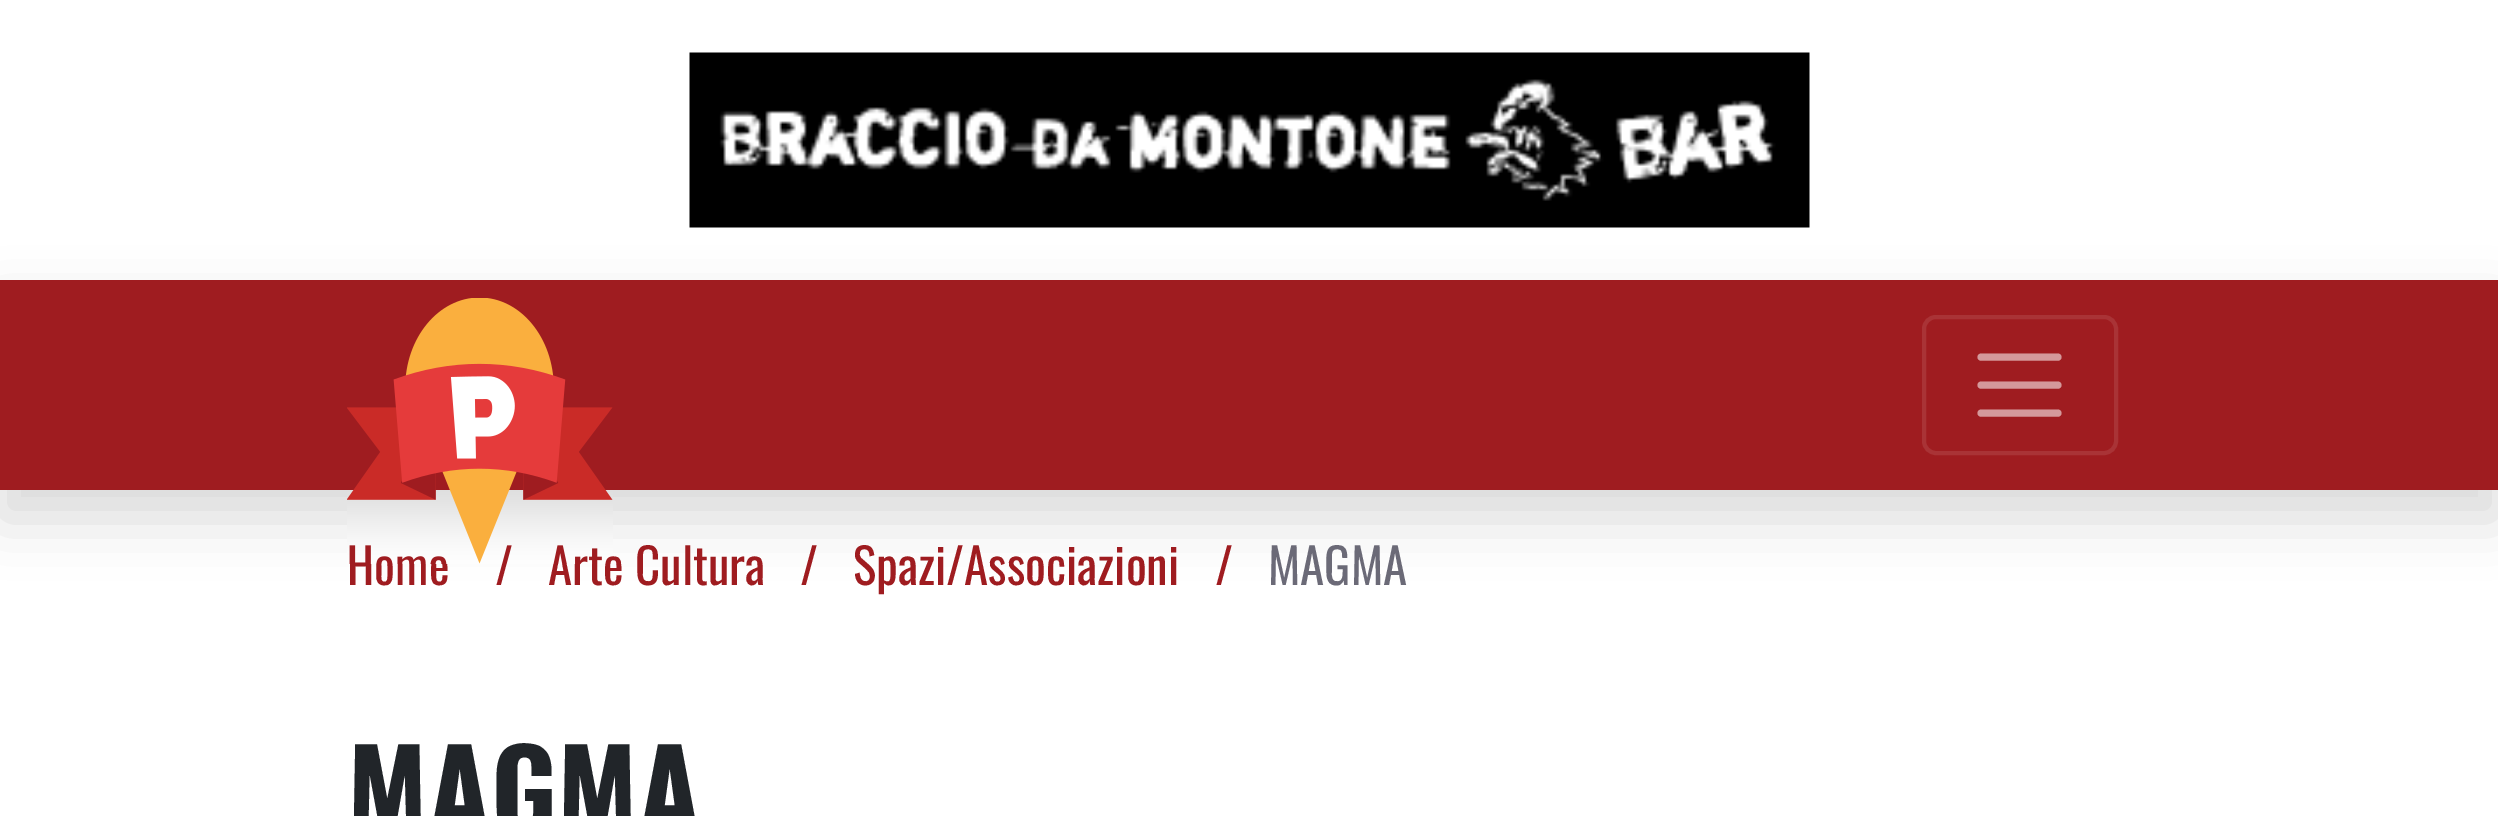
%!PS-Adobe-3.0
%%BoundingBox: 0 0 2498 816
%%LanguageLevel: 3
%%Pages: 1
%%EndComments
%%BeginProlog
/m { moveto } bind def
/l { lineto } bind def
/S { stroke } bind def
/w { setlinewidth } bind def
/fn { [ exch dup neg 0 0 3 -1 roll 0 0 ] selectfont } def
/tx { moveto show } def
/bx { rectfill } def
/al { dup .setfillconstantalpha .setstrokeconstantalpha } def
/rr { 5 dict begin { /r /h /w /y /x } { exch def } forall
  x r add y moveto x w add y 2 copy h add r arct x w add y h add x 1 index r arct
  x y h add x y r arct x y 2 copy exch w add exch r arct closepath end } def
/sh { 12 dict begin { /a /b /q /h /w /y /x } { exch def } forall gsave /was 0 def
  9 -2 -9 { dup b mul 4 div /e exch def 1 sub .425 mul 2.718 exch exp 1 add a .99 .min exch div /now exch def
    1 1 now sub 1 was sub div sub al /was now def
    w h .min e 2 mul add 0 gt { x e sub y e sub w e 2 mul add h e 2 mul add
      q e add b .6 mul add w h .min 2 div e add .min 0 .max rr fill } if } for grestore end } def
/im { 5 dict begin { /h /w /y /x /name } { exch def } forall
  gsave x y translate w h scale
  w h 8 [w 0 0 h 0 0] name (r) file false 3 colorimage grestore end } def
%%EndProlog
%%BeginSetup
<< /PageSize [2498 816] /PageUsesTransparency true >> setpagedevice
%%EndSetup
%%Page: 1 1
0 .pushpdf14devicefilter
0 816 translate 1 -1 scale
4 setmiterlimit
1 setgray
0 0 2498 816 bx
(image0.raw) 689 52 1121 176 im
0 setgray
0 308 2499 210 0 28 0.15 sh
0.624 0.11 0.125 setrgbcolor
0 280 2498 210 bx
/Oswald-Regular 49 fn
(Home) 347 585 tx
(/) 495 585 tx
(Arte Cultura) 548 585 tx
(image1.raw) 347 298 266 266 im
0.663 0.2 0.212 setrgbcolor
4 w
1924 317 192 136 12 rr S
0.831 0.6 0.608 setrgbcolor
7 w
1 setlinecap
1981 357 m 2058 357 l 1981 385 m 2058 385 l 1981 413 m 2058 413 l S
0.624 0.11 0.125 setrgbcolor
(/) 800 585 tx
(Spazi/Associazioni) 853 585 tx
(/) 1215 585 tx
0.42 0.416 0.467 setrgbcolor
(MAGMA) 1268 585 tx
/Oswald-Bold 114.5 fn
0.129 0.145 0.161 setrgbcolor
(MAGMA) 347 837 tx
.poppdf14devicefilter showpage
%%EOF
